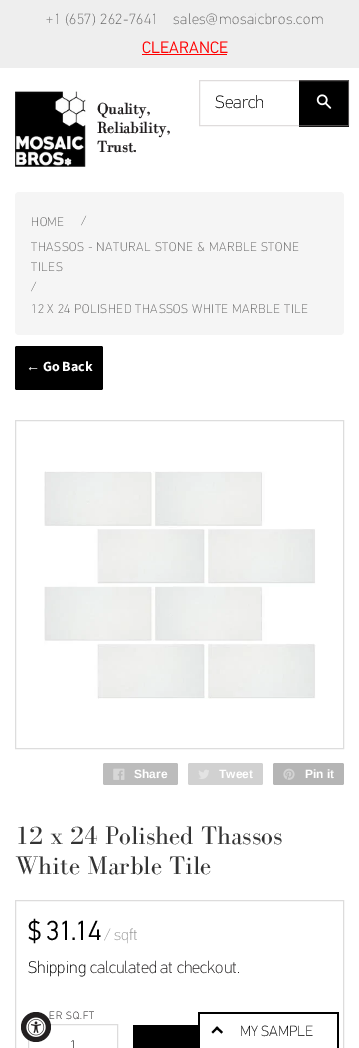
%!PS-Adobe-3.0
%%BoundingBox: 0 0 359 1048
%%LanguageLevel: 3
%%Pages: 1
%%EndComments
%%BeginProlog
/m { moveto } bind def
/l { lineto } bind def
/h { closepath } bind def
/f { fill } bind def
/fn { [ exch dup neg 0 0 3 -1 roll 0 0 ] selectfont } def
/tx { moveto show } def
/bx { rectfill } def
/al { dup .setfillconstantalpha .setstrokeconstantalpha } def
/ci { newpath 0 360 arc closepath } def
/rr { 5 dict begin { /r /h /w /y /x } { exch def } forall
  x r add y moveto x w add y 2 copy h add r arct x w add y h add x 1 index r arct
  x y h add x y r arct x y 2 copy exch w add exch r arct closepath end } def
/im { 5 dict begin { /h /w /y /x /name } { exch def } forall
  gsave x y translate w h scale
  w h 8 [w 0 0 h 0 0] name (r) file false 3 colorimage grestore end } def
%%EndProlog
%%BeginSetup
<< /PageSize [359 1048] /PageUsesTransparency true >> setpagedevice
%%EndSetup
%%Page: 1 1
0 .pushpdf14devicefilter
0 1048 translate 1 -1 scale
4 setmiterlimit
1 setgray
0 0 359 1048 bx
0.933 setgray
0 0 359 68 bx
/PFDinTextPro-Thin 14 fn
0.412 0.408 0.408 setrgbcolor
46 24 m 0.6 0 (+1 \(657\) 262-7641) ashow
173 24 m 0.6 0 (sales@mosaicbros.com) ashow
/PFDinTextPro-Bold 15 fn
1 0 0 setrgbcolor
142 53 m 0.6 0 (CLEARANCE) ashow
142 54 85 1 bx
(image0.raw) 15 91 71 76 im
/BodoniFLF-Bold 16 fn
0.133 0.122 0.125 setrgbcolor
(Quality,) 97 114 tx
(Reliability,) 97 133 tx
(Trust.) 97 152 tx
0 setgray
299 80 50 47 bx
(image1.raw) 316 94 16 15 im
0.44 al
0.718 0.69 0.69 setrgbcolor
199.5 80.5 149 45 rectstroke
/PFDinTextPro-Thin 17 fn
1 al
0 setgray
(Search) 215 108 tx
0.961 setgray
15 192 329 143 4 rr f
/PFDinTextPro-Thin 12 fn
0.412 0.408 0.408 setrgbcolor
31 226 m 0.6 0 (HOME) ashow
81 225 m 0.6 0 (/) ashow
31 251 m 0.6 0 (THASSOS - NATURAL STONE & MARBLE STONE) ashow
31 271 m 0.6 0 (TILES) ashow
31 291 m 0.6 0 (/) ashow
31 313 m 0.6 0 (12 X 24 POLISHED THASSOS WHITE MARBLE TILE) ashow
0 setgray
15 346 88 44 2 rr f
/LiberationSans-Bold 14 fn
1 setgray
(←) 26 371 tx
/SourceSansPro-Bold 14 fn
(Go Back) 43 371 tx
0.867 setgray
15.5 420.5 328 328 rectstroke
(image2.raw) 44 471 272 228 im
0.737 setgray
103 763 75 22 2 rr f
(image3.raw) 113 768 12 12 im
/LiberationSans-Bold 12 fn
1 setgray
(Share) 134 778 tx
0.82 setgray
188 763 75 22 2 rr f
(image4.raw) 198 769 11 10 im
1 setgray
(Tweet) 219 778 tx
0.71 setgray
273 763 71 22 2 rr f
(image5.raw) 283 768 12 12 im
1 setgray
(Pin it) 305 778 tx
/BodoniFLF-Regular 26 fn
0.2 setgray
(12 x 24 Polished Thassos) 15 844 tx
(White Marble Tile) 15 874 tx
0.867 0.863 0.863 setrgbcolor
15.5 900.5 328 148 rectstroke
/PFDinTextPro-Bold 25 fn
0 setgray
($ 31.14) 28 940 tx
/PFDinTextPro-Thin 15 fn
0.584 setgray
(/ sqft) 104 940 tx
/PFDinTextPro-Thin 16 fn
0 setgray
(Shipping) 28 973 tx
0.133 0.122 0.125 setrgbcolor
(calculated at checkout.) 90 973 tx
/PFDinTextPro-Thin 10 fn
49 1019 m 1 0 (ER SQ.FT) ashow
0.867 0.863 0.863 setrgbcolor
28.5 1024.5 89 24 rectstroke
/PFDinTextPro-Thin 16 fn
0.2 setgray
(1) 69 1052 tx
0 setgray
133 1025 65 23 bx
0.133 0.122 0.125 setrgbcolor
36 1027 15 ci f
(image6.raw) 26 1017 20 20 im
0 setgray
198 1012 141 2 bx
337 1012 2 36 bx
198 1012 2 36 bx
217 1026.5 m 223 1032 l 221.5 1033.5 l 215.5 1028 l h f
217 1026.5 m 218.5 1028 l 213 1033.5 l 211.5 1032 l h f
/PFDinTextPro-Thin 14 fn
(MY SAMPLE) 240 1036 tx
.poppdf14devicefilter showpage
%%EOF
